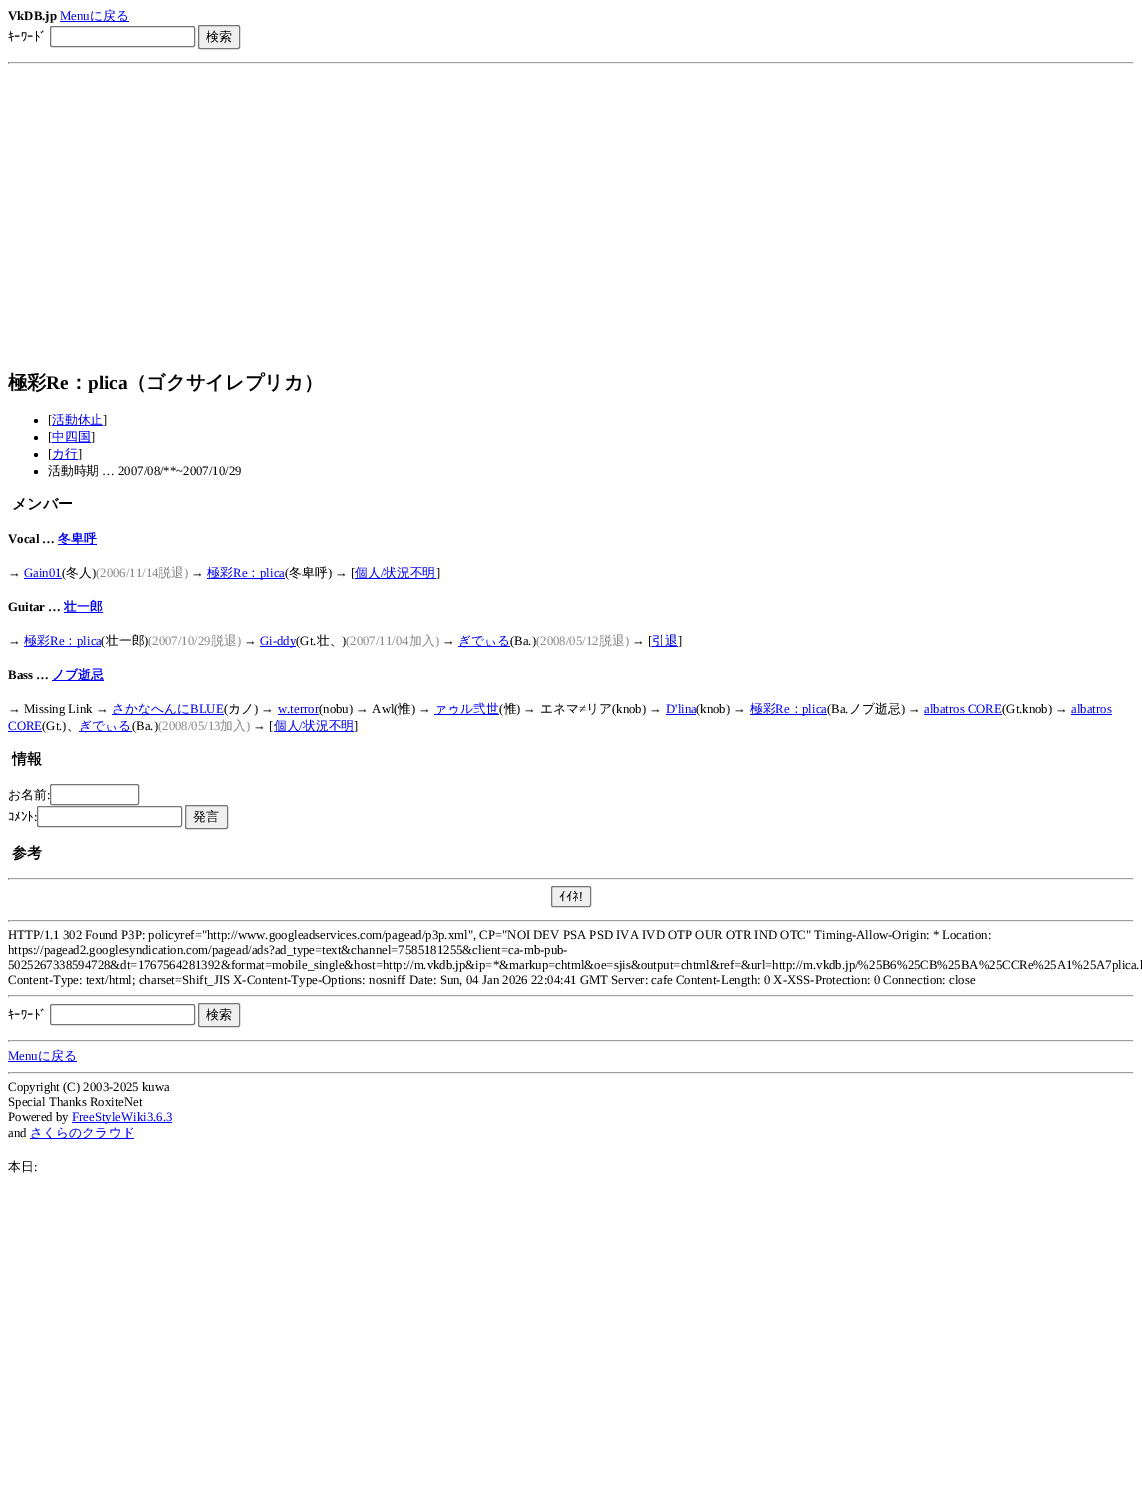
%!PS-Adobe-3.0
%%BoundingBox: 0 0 1142 1495
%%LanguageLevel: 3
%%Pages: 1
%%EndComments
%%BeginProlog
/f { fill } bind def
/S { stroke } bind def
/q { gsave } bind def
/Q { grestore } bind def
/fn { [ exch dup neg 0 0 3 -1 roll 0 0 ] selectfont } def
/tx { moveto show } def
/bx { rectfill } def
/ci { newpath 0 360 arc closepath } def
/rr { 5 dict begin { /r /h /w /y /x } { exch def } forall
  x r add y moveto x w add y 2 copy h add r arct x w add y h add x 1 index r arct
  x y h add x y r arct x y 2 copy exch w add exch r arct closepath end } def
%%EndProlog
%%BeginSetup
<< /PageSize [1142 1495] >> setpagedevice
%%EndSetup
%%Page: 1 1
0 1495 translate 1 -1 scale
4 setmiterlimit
1 setgray
0 0 1142 1495 bx
/LiberationSerif-Bold 12.8 fn
0 setgray
(VkDB.jp) 8 20 tx
/LiberationSerif-Regular 12.8 fn
0 0 0.933 setrgbcolor
(Menu) 60 20 tx
60 21 69 1 bx
/WenQuanYiZenHei-Medium 12.8 fn
(に戻る) 90 20 tx
/IPAGothic-Regular 12.8 fn
0 setgray
(ｷｰﾜｰﾄﾞ) 8 41 tx
0.463 setgray
50.5 26.5 144 20 1.5 rr S
0.937 setgray
198.5 25.5 41 23 1.5 rr q f Q
0.463 setgray
S
/WenQuanYiZenHei-Medium 13 fn
0 setgray
(検索) 206 41 tx
0.624 setgray
8 62 1126 1 bx
0.933 setgray
1133 62 1 2 bx
8 63 1126 1 bx
0.624 setgray
8 62 1 2 bx
/WenQuanYiZenHei-Bold 19.25 fn
0 setgray
(極彩) 8 389 tx
/LiberationSerif-Bold 19.25 fn
(Re) 46 389 tx
/WenQuanYiZenHei-Bold 19.25 fn
(：) 69 389 tx
/LiberationSerif-Bold 19.25 fn
(plica) 88 389 tx
/WenQuanYiZenHei-Bold 19.25 fn
(（ゴクサイレプリカ）) 127 389 tx
36 421 2 ci f
/LiberationSerif-Regular 12.8 fn
([) 48 424 tx
0 0 0.933 setrgbcolor
52 425 51 1 bx
/WenQuanYiZenHei-Medium 12.8 fn
(活動休止) 52 424 tx
/LiberationSerif-Regular 12.8 fn
0 setgray
(]) 103 424 tx
36 438 2 ci f
([) 48 441 tx
0 0 0.933 setrgbcolor
52 442 39 1 bx
/WenQuanYiZenHei-Medium 12.8 fn
(中四国) 52 441 tx
/LiberationSerif-Regular 12.8 fn
0 setgray
(]) 91 441 tx
36 455 2 ci f
([) 48 458 tx
0 0 0.933 setrgbcolor
52 459 26 1 bx
/WenQuanYiZenHei-Medium 12.8 fn
(カ行) 52 458 tx
/LiberationSerif-Regular 12.8 fn
0 setgray
(]) 78 458 tx
36 472 2 ci f
/WenQuanYiZenHei-Medium 12.8 fn
(活動時期) 48 475 tx
/LiberationSerif-Regular 12.8 fn
(… 2007/08/**~2007/10/29) 102 475 tx
/WenQuanYiZenHei-Bold 15 fn
(メンバー) 12 509 tx
/LiberationSerif-Bold 12.8 fn
(Vocal …) 8 543 tx
0 0 0.933 setrgbcolor
58 544 39 1 bx
/WenQuanYiZenHei-Bold 12.8 fn
(冬卑呼) 58 543 tx
/LiberationSerif-Regular 12.8 fn
0 setgray
(→) 8 577 tx
0 0 0.933 setrgbcolor
(Gain01) 24 577 tx
24 578 38 1 bx
0 setgray
(\() 62 577 tx
/WenQuanYiZenHei-Medium 12.8 fn
(冬人) 66 577 tx
/LiberationSerif-Regular 12.8 fn
(\)) 92 577 tx
0.533 setgray
(\(2006/11/14) 96 577 tx
/WenQuanYiZenHei-Medium 12.8 fn
(脱退) 158 577 tx
/LiberationSerif-Regular 12.8 fn
(\)) 184 577 tx
0 setgray
(→) 191 577 tx
0 0 0.933 setrgbcolor
207 578 78 1 bx
/WenQuanYiZenHei-Medium 12.8 fn
(極彩) 207 577 tx
/LiberationSerif-Regular 12.8 fn
(Re) 233 577 tx
/WenQuanYiZenHei-Medium 12.8 fn
(：) 247 577 tx
/LiberationSerif-Regular 12.8 fn
(plica) 260 577 tx
0 setgray
(\() 285 577 tx
/WenQuanYiZenHei-Medium 12.8 fn
(冬卑呼) 289 577 tx
/LiberationSerif-Regular 12.8 fn
(\) → [) 328 577 tx
0 0 0.933 setrgbcolor
355 578 81 1 bx
/WenQuanYiZenHei-Medium 12.8 fn
(個人) 355 577 tx
/LiberationSerif-Regular 12.8 fn
(/) 381 577 tx
/WenQuanYiZenHei-Medium 12.8 fn
(状況不明) 384 577 tx
/LiberationSerif-Regular 12.8 fn
0 setgray
(]) 436 577 tx
/LiberationSerif-Bold 12.8 fn
(Guitar …) 8 611 tx
0 0 0.933 setrgbcolor
64 612 39 1 bx
/WenQuanYiZenHei-Bold 12.8 fn
(壮一郎) 64 611 tx
/LiberationSerif-Regular 12.8 fn
0 setgray
(→) 8 645 tx
0 0 0.933 setrgbcolor
24 646 77 1 bx
/WenQuanYiZenHei-Medium 12.8 fn
(極彩) 24 645 tx
/LiberationSerif-Regular 12.8 fn
(Re) 50 645 tx
/WenQuanYiZenHei-Medium 12.8 fn
(：) 64 645 tx
/LiberationSerif-Regular 12.8 fn
(plica) 77 645 tx
0 setgray
(\() 101 645 tx
/WenQuanYiZenHei-Medium 12.8 fn
(壮一郎) 106 645 tx
/LiberationSerif-Regular 12.8 fn
(\)) 144 645 tx
0.533 setgray
(\(2007/10/29) 148 645 tx
/WenQuanYiZenHei-Medium 12.8 fn
(脱退) 211 645 tx
/LiberationSerif-Regular 12.8 fn
(\)) 237 645 tx
0 setgray
(→) 244 645 tx
0 0 0.933 setrgbcolor
260 646 36 1 bx
(Gi-ddy) 260 645 tx
0 setgray
(\(Gt.) 296 645 tx
/WenQuanYiZenHei-Medium 12.8 fn
(壮、) 317 645 tx
/LiberationSerif-Regular 12.8 fn
(\)) 342 645 tx
0.533 setgray
(\(2007/11/04) 346 645 tx
/WenQuanYiZenHei-Medium 12.8 fn
(加入) 409 645 tx
/LiberationSerif-Regular 12.8 fn
(\)) 435 645 tx
0 setgray
(→) 442 645 tx
0 0 0.933 setrgbcolor
458 646 52 1 bx
/WenQuanYiZenHei-Medium 12.8 fn
(ぎでぃる) 458 645 tx
/LiberationSerif-Regular 12.8 fn
0 setgray
(\(Ba.\)) 510 645 tx
0.533 setgray
(\(2008/05/12) 536 645 tx
/WenQuanYiZenHei-Medium 12.8 fn
(脱退) 599 645 tx
/LiberationSerif-Regular 12.8 fn
(\)) 625 645 tx
0 setgray
(→ [) 632 645 tx
0 0 0.933 setrgbcolor
652 646 26 1 bx
/WenQuanYiZenHei-Medium 12.8 fn
(引退) 652 645 tx
/LiberationSerif-Regular 12.8 fn
0 setgray
(]) 678 645 tx
/LiberationSerif-Bold 12.8 fn
(Bass …) 8 679 tx
0 0 0.933 setrgbcolor
52 680 52 1 bx
/WenQuanYiZenHei-Bold 12.8 fn
(ノブ逝忌) 52 679 tx
/LiberationSerif-Regular 12.8 fn
0 setgray
(→ Missing Link →) 8 713 tx
0 0 0.933 setrgbcolor
112 714 112 1 bx
/WenQuanYiZenHei-Medium 12.8 fn
(さかなへんに) 112 713 tx
/LiberationSerif-Regular 12.8 fn
(BLUE) 190 713 tx
0 setgray
(\() 224 713 tx
/WenQuanYiZenHei-Medium 12.8 fn
(カノ) 228 713 tx
/LiberationSerif-Regular 12.8 fn
(\) →) 254 713 tx
0 0 0.933 setrgbcolor
(w.terror) 278 713 tx
278 714 41 1 bx
0 setgray
(\(nobu\) → Awl\() 319 713 tx
/WenQuanYiZenHei-Medium 12.8 fn
(惟) 398 713 tx
/LiberationSerif-Regular 12.8 fn
(\) →) 411 713 tx
0 0 0.933 setrgbcolor
434 714 65 1 bx
/WenQuanYiZenHei-Medium 12.8 fn
(ァゥル弐世) 434 713 tx
/LiberationSerif-Regular 12.8 fn
0 setgray
(\() 499 713 tx
/WenQuanYiZenHei-Medium 12.8 fn
(惟) 504 713 tx
/LiberationSerif-Regular 12.8 fn
(\) →) 516 713 tx
/WenQuanYiZenHei-Medium 12.8 fn
(エネマ) 540 713 tx
/LiberationSerif-Regular 12.8 fn
(≠) 579 713 tx
/WenQuanYiZenHei-Medium 12.8 fn
(リア) 586 713 tx
/LiberationSerif-Regular 12.8 fn
(\(knob\) →) 612 713 tx
0 0 0.933 setrgbcolor
(D'lina) 666 713 tx
666 714 30 1 bx
0 setgray
(\(knob\) →) 696 713 tx
0 0 0.933 setrgbcolor
750 714 77 1 bx
/WenQuanYiZenHei-Medium 12.8 fn
(極彩) 750 713 tx
/LiberationSerif-Regular 12.8 fn
(Re) 775 713 tx
/WenQuanYiZenHei-Medium 12.8 fn
(：) 790 713 tx
/LiberationSerif-Regular 12.8 fn
(plica) 802 713 tx
0 setgray
(\(Ba.) 827 713 tx
/WenQuanYiZenHei-Medium 12.8 fn
(ノブ逝忌) 849 713 tx
/LiberationSerif-Regular 12.8 fn
(\) →) 901 713 tx
0 0 0.933 setrgbcolor
(albatros CORE) 924 713 tx
924 714 78 1 bx
0 setgray
(\(Gt.knob\) →) 1002 713 tx
0 0 0.933 setrgbcolor
(albatros) 1071 713 tx
1071 714 41 1 bx
(CORE) 8 730 tx
8 731 34 1 bx
0 setgray
(\(Gt.\)) 42 730 tx
/WenQuanYiZenHei-Medium 12.8 fn
(、) 67 730 tx
0 0 0.933 setrgbcolor
79 731 53 1 bx
(ぎでぃる) 79 730 tx
/LiberationSerif-Regular 12.8 fn
0 setgray
(\(Ba.\)) 132 730 tx
0.533 setgray
(\(2008/05/13) 158 730 tx
/WenQuanYiZenHei-Medium 12.8 fn
(加入) 220 730 tx
/LiberationSerif-Regular 12.8 fn
(\)) 246 730 tx
0 setgray
(→ [) 253 730 tx
0 0 0.933 setrgbcolor
274 731 80 1 bx
/WenQuanYiZenHei-Medium 12.8 fn
(個人) 274 730 tx
/LiberationSerif-Regular 12.8 fn
(/) 299 730 tx
/WenQuanYiZenHei-Medium 12.8 fn
(状況不明) 303 730 tx
/LiberationSerif-Regular 12.8 fn
0 setgray
(]) 354 730 tx
/WenQuanYiZenHei-Bold 15 fn
(情報) 12 764 tx
/WenQuanYiZenHei-Medium 12.8 fn
(お名前) 8 799 tx
/LiberationSerif-Regular 12.8 fn
(:) 47 799 tx
0.463 setgray
50.5 784.5 88 20 1.5 rr S
/IPAGothic-Regular 12.8 fn
0 setgray
(ｺﾒﾝﾄ) 8 821 tx
/LiberationSerif-Regular 12.8 fn
(:) 34 821 tx
0.463 setgray
37.5 806.5 144 20 1.5 rr S
0.937 setgray
185.5 805.5 42 23 1.5 rr q f Q
0.463 setgray
S
/WenQuanYiZenHei-Medium 13 fn
0 setgray
(発言) 193 821 tx
/WenQuanYiZenHei-Bold 15 fn
(参考) 12 858 tx
0.624 setgray
8 878 1126 1 bx
0.933 setgray
1133 878 1 2 bx
8 879 1126 1 bx
0.624 setgray
8 878 1 2 bx
0.937 setgray
551.5 886.5 39 20 1.5 rr q f Q
0.463 setgray
S
/IPAGothic-Regular 13 fn
0 setgray
(ｲｲﾈ) 559 901 tx
/LiberationSans-Regular 13 fn
(!) 579 901 tx
0.624 setgray
8 920 1126 1 bx
0.933 setgray
1133 920 1 2 bx
8 921 1126 1 bx
0.624 setgray
8 920 1 2 bx
/LiberationSerif-Regular 12.8 fn
0 setgray
(HTTP/1.1 302 Found P3P: policyref="http://www.googleadservices.com/pagead/p3p.xml", CP="NOI DEV PSA PSD IVA IVD OTP OUR OTR IND OTC" Timing-Allow-Origin: * Location:) 8 939 tx
(https://pagead2.googlesyndication.com/pagead/ads?ad_type=text&channel=7585181255&client=ca-mb-pub-) 8 954 tx
(5025267338594728&dt=1767564281392&format=mobile_single&host=http://m.vkdb.jp&ip=*&markup=chtml&oe=sjis&output=chtml&ref=&url=http://m.vkdb.jp/%25B6%25CB%25BA%25CCRe%25A1%25A7plica.h) 8 969 tx
(Content-Type: text/html; charset=Shift_JIS X-Content-Type-Options: nosniff Date: Sun, 04 Jan 2026 22:04:41 GMT Server: cafe Content-Length: 0 X-XSS-Protection: 0 Connection: close) 8 984 tx
0.624 setgray
8 995 1126 1 bx
0.933 setgray
1133 995 1 2 bx
8 996 1126 1 bx
0.624 setgray
8 995 1 2 bx
/IPAGothic-Regular 12.8 fn
0 setgray
(ｷｰﾜｰﾄﾞ) 8 1019 tx
0.463 setgray
50.5 1004.5 144 20 1.5 rr S
0.937 setgray
198.5 1003.5 41 23 1.5 rr q f Q
0.463 setgray
S
/WenQuanYiZenHei-Medium 13 fn
0 setgray
(検索) 206 1019 tx
0.624 setgray
8 1040 1126 1 bx
0.933 setgray
1133 1040 1 2 bx
8 1041 1126 1 bx
0.624 setgray
8 1040 1 2 bx
/LiberationSerif-Regular 12.8 fn
0 0 0.933 setrgbcolor
(Menu) 8 1060 tx
8 1061 69 1 bx
/WenQuanYiZenHei-Medium 12.8 fn
(に戻る) 38 1060 tx
0.624 setgray
8 1072 1126 1 bx
0.933 setgray
1133 1072 1 2 bx
8 1073 1126 1 bx
0.624 setgray
8 1072 1 2 bx
/LiberationSerif-Regular 12.8 fn
0 setgray
(Copyright \(C\) 2003-2025 kuwa) 8 1091 tx
(Special Thanks RoxiteNet) 8 1106 tx
(Powered by) 8 1121 tx
0 0 0.933 setrgbcolor
72 1122 100 1 bx
(FreeStyleWiki3.6.3) 72 1121 tx
0 setgray
(and) 8 1137 tx
0 0 0.933 setrgbcolor
30 1138 104 1 bx
/WenQuanYiZenHei-Medium 12.8 fn
(さくらのクラウド) 30 1137 tx
0 setgray
(本日) 8 1171 tx
/LiberationSerif-Regular 12.8 fn
(:) 34 1171 tx
showpage
%%EOF
